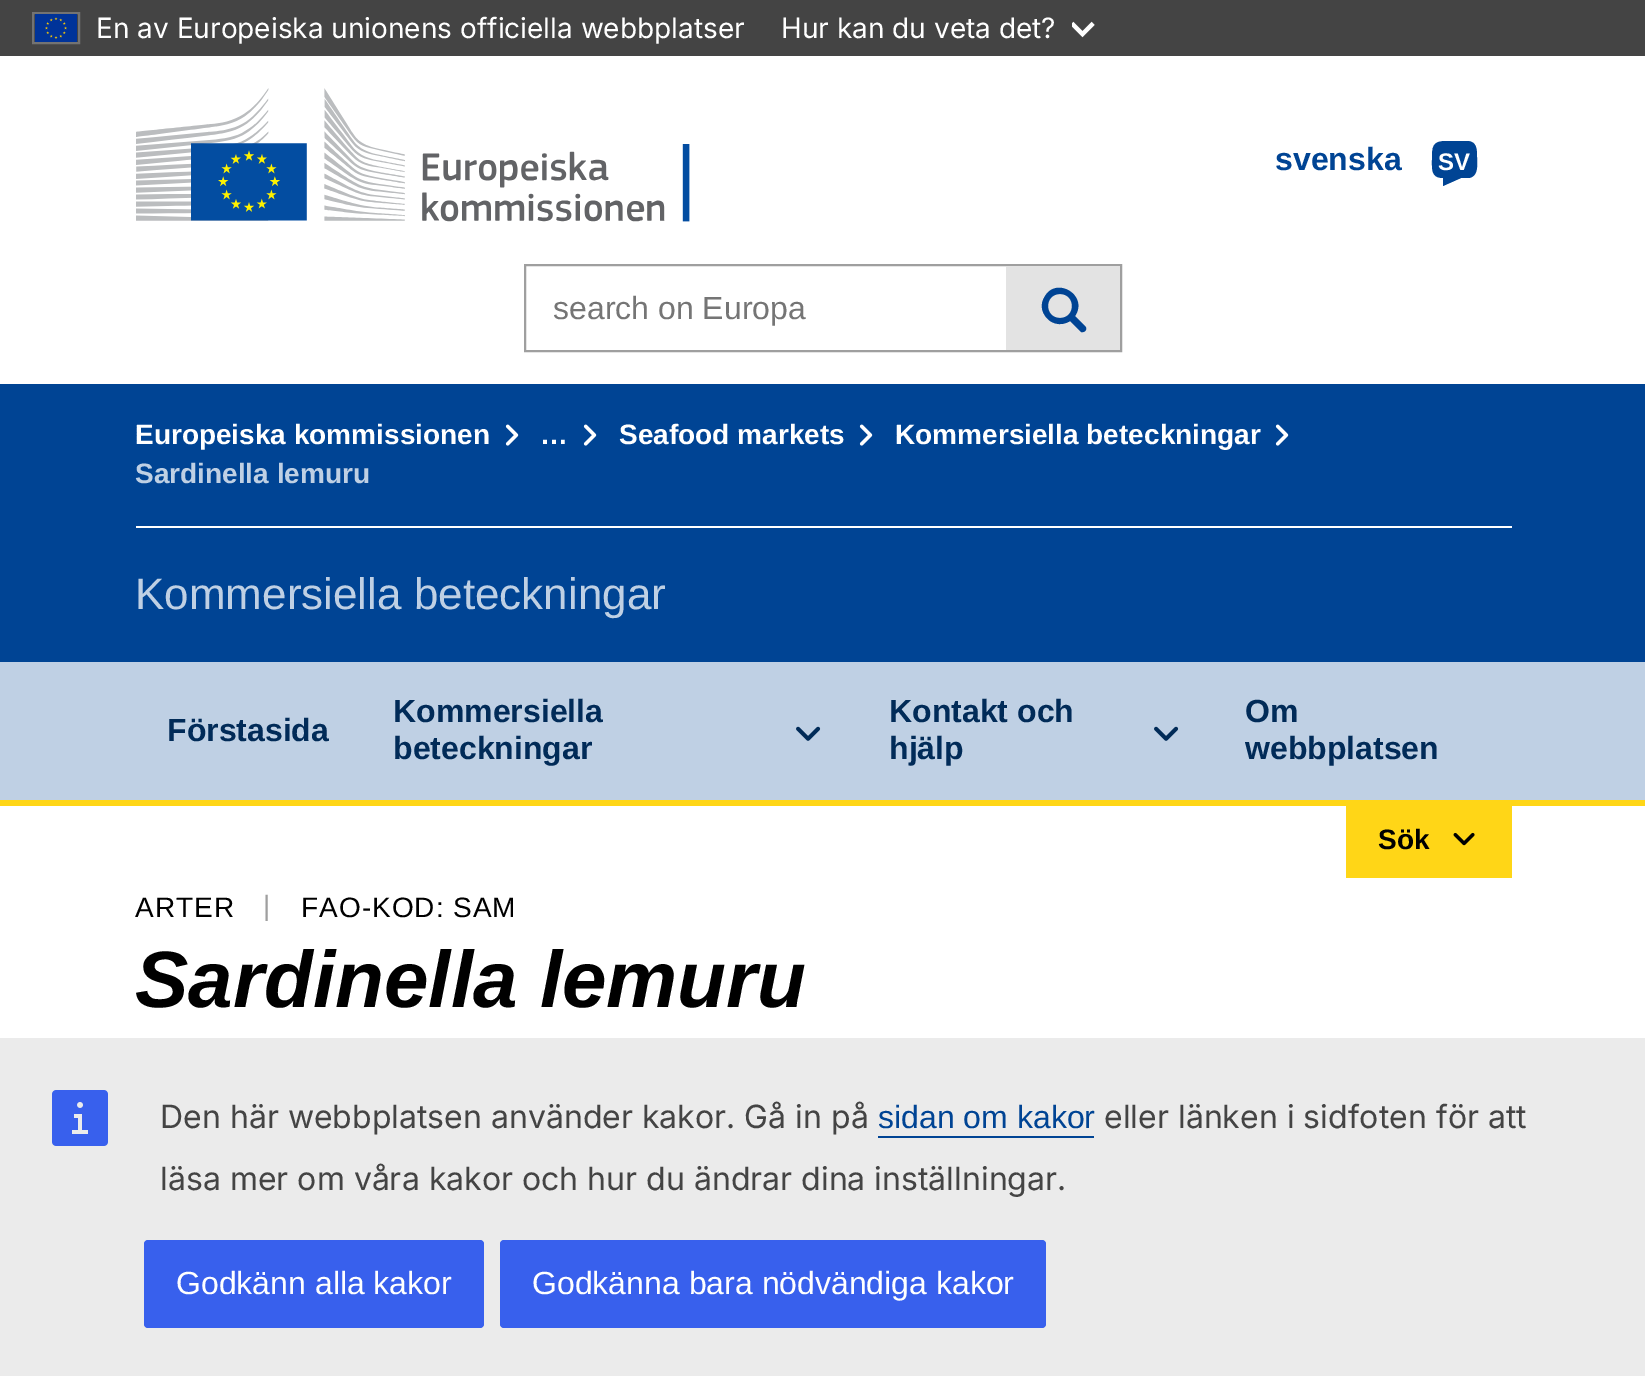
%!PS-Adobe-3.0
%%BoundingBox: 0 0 1645 1376
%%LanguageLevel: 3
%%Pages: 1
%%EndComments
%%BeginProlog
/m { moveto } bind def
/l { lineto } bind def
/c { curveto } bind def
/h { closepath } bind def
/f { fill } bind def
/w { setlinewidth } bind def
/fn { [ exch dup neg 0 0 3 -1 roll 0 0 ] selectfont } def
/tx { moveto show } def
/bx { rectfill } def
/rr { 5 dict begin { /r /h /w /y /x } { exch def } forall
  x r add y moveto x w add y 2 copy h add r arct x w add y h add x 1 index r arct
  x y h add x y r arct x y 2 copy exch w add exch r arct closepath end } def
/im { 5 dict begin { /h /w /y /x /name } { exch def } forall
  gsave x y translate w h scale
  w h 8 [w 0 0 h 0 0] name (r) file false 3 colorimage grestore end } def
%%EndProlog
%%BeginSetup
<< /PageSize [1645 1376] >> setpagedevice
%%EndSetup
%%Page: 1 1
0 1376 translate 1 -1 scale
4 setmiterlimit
1 setgray
0 0 1645 1376 bx
0.267 setgray
0 0 1645 56 bx
0.451 setgray
2 w
33 13 46 30 rectstroke
(image0.raw) 35 14 42 28 im
/Inter-Regular 28 fn
1 setgray
(En av Europeiska unionens officiella webbplatser) 96 38 tx
(Hur kan du veta det?) 781 38 tx
(image1.raw) 1072 21 23 17 im
(image2.raw) 136 88 554 134 im
/LiberationSans-Bold 32 fn
0 0.267 0.58 setrgbcolor
(svenska) 1275 170 tx
1467 141 m 1446 141 l 1432 141 1432 147 1432 160 c 1432 169 1431 178 1443 178 c 1443 186 l 1461 178 l 1469 178 l 1479 176 1477 164 1477 157 c 1477 150 1477 141 1467 141 c h f
/LiberationSans-Bold 24 fn
1 setgray
(SV) 1438 170 tx
0.624 setgray
525 265 596 86 rectstroke
/LiberationSans-Regular 32 fn
0.459 setgray
(search on Europa) 553 319 tx
0.89 setgray
1006 266 114 84 bx
0 0.267 0.58 setrgbcolor
1085 326 m 1075 316 l 1089 295 1055 275 1044 298 c 1041 303 1041 309 1044 314 c 1049 324 1061 327 1070 321 c 1081 332 l 1085 333 1088 329 1085 326 c h 1060 318 m 1044 318 1044 294 1060 294 c 1076 294 1076 318 1060 318 c h f
0 384 1645 278 bx
1 setgray
136 526 1376 2 bx
/LiberationSans-Bold 28 fn
(Europeiska kommissionen) 135 444 tx
(image3.raw) 505 424 14 22 im
(…) 540 444 tx
(image3.raw) 583 424 14 22 im
(Seafood markets) 619 444 tx
(image3.raw) 859 424 14 22 im
(Kommersiella beteckningar) 895 444 tx
(image3.raw) 1275 424 14 22 im
0.749 0.816 0.894 setrgbcolor
(Sardinella lemuru) 135 483 tx
/LiberationSans-Regular 44 fn
(Kommersiella beteckningar) 135 609 tx
0 662 1645 138 bx
/LiberationSans-Bold 32 fn
0.004 0.169 0.345 setrgbcolor
(Förstasida) 167 741 tx
(Kommersiella) 393 722 tx
(image4.raw) 796 726 25 15 im
(beteckningar) 393 759 tx
(Kontakt och) 889 722 tx
(image4.raw) 1154 726 25 15 im
(hjälp) 889 759 tx
(Om) 1245 722 tx
(webbplatsen) 1245 759 tx
1 0.839 0.09 setrgbcolor
0 800 1645 6 bx
1346 806 166 72 bx
/LiberationSans-Bold 28 fn
0 setgray
(Sök) 1378 849 tx
(image5.raw) 1453 832 22 14 im
/LiberationSans-Regular 28 fn
135 917 m 1 0 (ARTER) ashow
0.624 setgray
263 915 m 1 0 (|) ashow
0 setgray
301 917 m 1 0 (FAO-KOD: SAM) ashow
/LiberationSans-BoldItalic 80 fn
(Sardinella lemuru) 135 1007 tx
0.922 setgray
0 1038 1645 338 bx
(image6.raw) 52 1090 56 56 im
/Inter-Regular 32 fn
0.267 setgray
(Den här webbplatsen använder kakor. Gå in på) 160 1128 tx
/LiberationSans-Regular 32 fn
0 0.267 0.58 setrgbcolor
(sidan om kakor) 878 1128 tx
878 1136 216 2 bx
/Inter-Regular 32 fn
0.267 setgray
(eller länken i sidfoten för att) 1104 1128 tx
(läsa mer om våra kakor och hur du ändrar dina inställningar.) 160 1190 tx
0.22 0.376 0.929 setrgbcolor
144 1240 340 88 4 rr f
/LiberationSans-Regular 32 fn
1 setgray
(Godkänn alla kakor) 176 1294 tx
0.22 0.376 0.929 setrgbcolor
500 1240 546 88 4 rr f
1 setgray
(Godkänna bara nödvändiga kakor) 532 1294 tx
showpage
%%EOF
